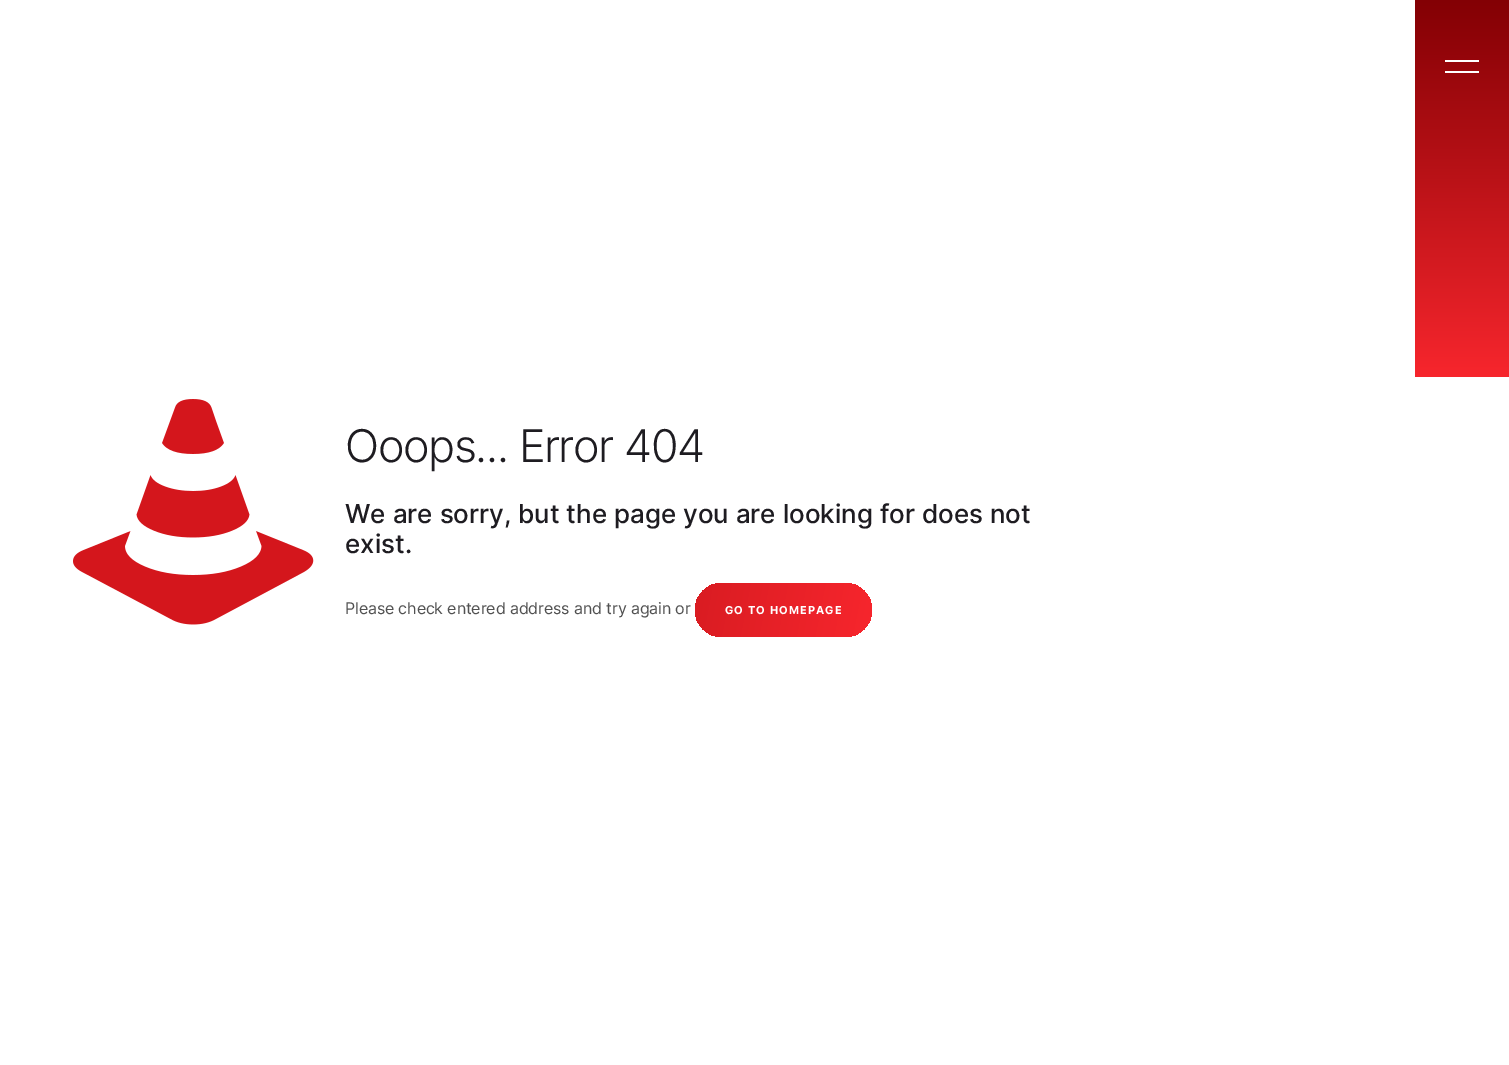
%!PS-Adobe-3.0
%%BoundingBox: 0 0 1509 1065
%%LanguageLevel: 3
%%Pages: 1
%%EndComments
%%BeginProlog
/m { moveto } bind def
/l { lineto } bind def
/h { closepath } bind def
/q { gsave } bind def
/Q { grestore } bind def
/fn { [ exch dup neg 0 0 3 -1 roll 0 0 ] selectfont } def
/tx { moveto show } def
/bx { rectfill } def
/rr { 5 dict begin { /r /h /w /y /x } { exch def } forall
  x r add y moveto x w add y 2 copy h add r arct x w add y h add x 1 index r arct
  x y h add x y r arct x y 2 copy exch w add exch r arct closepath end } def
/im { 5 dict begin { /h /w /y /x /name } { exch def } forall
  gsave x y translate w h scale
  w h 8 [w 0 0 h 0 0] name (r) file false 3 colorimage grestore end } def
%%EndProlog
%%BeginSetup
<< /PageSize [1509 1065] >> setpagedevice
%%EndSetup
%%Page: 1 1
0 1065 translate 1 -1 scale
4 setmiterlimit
1 setgray
0 0 1509 1065 bx
q 1415 0 m 1509 0 l 1509 377 l 1415 377 l h clip newpath
<< /ShadingType 2 /ColorSpace /DeviceRGB /Coords [1462 377 1462 0] /Extend [true true] /Function << /FunctionType 2 /Domain [0 1] /C0 [0.969 0.149 0.176] /C1 [0.514 0 0.016] /N 1 >> >> shfill Q
1445 60 34 2 bx
1445 71 34 2 bx
(image0.raw) 73 399 241 226 im
/Inter-Light 45 fn
0.118 0.11 0.129 setrgbcolor
345 462 m -1.4 0 (Ooops... Error 404) ashow
/Inter-Medium 26 fn
(We are sorry, but the page you are looking for does not) 345 523 tx
(exist.) 345 553 tx
/Inter-Regular 16 fn
0.318 setgray
345 614 m -0.15 0 (Please check entered address and try again or) ashow
q 695 583 177 54 27 rr clip newpath
<< /ShadingType 2 /ColorSpace /DeviceRGB /Coords [864 677 172 543] /Extend [true true] /Function << /FunctionType 2 /Domain [0 1] /C0 [0.969 0.149 0.176] /C1 [0.514 0 0.016] /N 1 >> >> shfill Q
/Inter-Bold 11 fn
1 setgray
725 614 m 1.1 0 (GO TO HOMEPAGE) ashow
showpage
%%EOF
